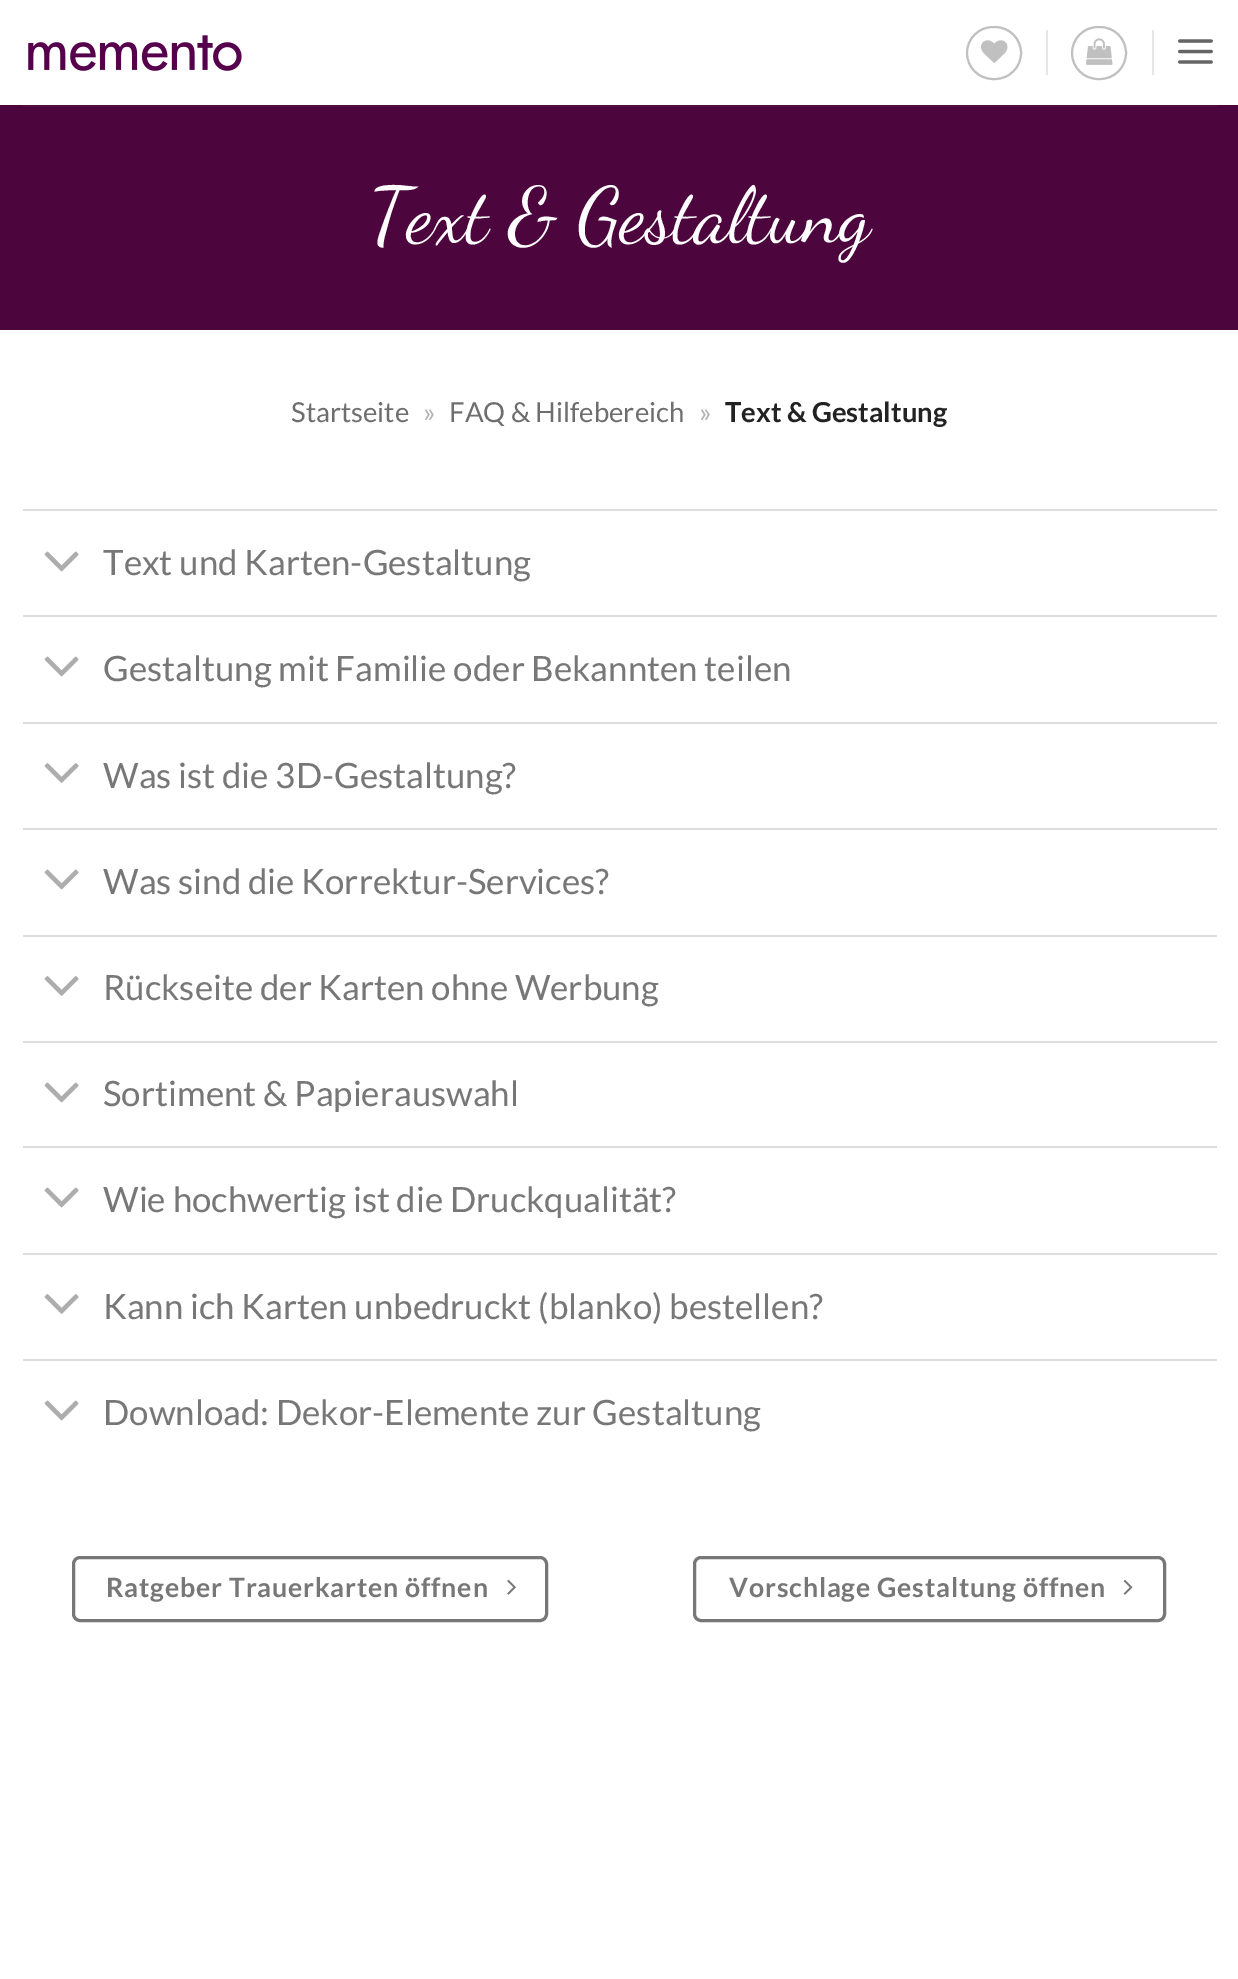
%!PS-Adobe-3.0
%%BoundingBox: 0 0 1238 1979
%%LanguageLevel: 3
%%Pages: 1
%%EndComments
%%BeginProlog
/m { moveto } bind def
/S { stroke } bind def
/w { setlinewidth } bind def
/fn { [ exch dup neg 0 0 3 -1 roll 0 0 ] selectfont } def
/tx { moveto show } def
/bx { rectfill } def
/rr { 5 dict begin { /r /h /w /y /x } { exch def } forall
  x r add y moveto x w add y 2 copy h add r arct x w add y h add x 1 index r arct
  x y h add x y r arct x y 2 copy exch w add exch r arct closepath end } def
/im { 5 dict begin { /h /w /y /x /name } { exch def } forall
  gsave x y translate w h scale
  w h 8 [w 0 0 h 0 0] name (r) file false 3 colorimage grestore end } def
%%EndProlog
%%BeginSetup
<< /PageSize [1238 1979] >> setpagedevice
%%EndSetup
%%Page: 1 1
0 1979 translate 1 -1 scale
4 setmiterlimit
1 setgray
0 0 1238 1979 bx
(image0.raw) 28 35 214 36 im
0.753 setgray
2 w
967 27 54 52 26 rr S
(image1.raw) 981 40 27 23 im
0.902 setgray
1046 30 2 45 bx
0.753 setgray
1072 27 54 52 26 rr S
(image2.raw) 1086 38 27 27 im
0.902 setgray
1152 30 2 45 bx
(image3.raw) 1178 39 35 25 im
0.302 0.02 0.243 setrgbcolor
0 105 1238 225 bx
0.318 0.063 0.267 setrgbcolor
23 105 1194 2 bx
/DancingScript-Regular 78 fn
1 setgray
(Text & Gestaltung) 369 241 tx
/Lato-Regular 27.5 fn
0.431 setgray
(Startseite) 291 422 tx
0.698 setgray
(») 423 422 tx
0.431 setgray
(FAQ & Hilfebereich) 449 422 tx
0.698 setgray
(») 699 422 tx
/Lato-Bold 27.5 fn
0.133 setgray
(Text & Gestaltung) 725 422 tx
0.867 setgray
23 509 1194 2 bx
(image4.raw) 44 551 35 21 im
/Lato-Regular 34.9 fn
0.467 setgray
(Text und Karten-Gestaltung) 103 575 tx
0.867 setgray
23 615 1194 2 bx
(image4.raw) 44 656 35 21 im
0.467 setgray
(Gestaltung mit Familie oder Bekannten teilen) 103 681 tx
0.867 setgray
23 722 1194 2 bx
(image5.raw) 44 763 35 20 im
0.467 setgray
(Was ist die 3D-Gestaltung?) 103 788 tx
0.867 setgray
23 828 1194 2 bx
(image4.raw) 44 869 35 21 im
0.467 setgray
(Was sind die Korrektur-Services?) 103 894 tx
0.867 setgray
23 935 1194 2 bx
(image5.raw) 44 976 35 20 im
0.467 setgray
(Rückseite der Karten ohne Werbung) 103 1000 tx
0.867 setgray
23 1041 1194 2 bx
(image4.raw) 44 1082 35 21 im
0.467 setgray
(Sortiment & Papierauswahl) 103 1106 tx
0.867 setgray
23 1146 1194 2 bx
(image4.raw) 44 1187 35 21 im
0.467 setgray
(Wie hochwertig ist die Druckqualität?) 103 1212 tx
0.867 setgray
23 1253 1194 2 bx
(image5.raw) 44 1294 35 20 im
0.467 setgray
(Kann ich Karten unbedruckt \(blanko\) bestellen?) 103 1319 tx
0.867 setgray
23 1359 1194 2 bx
(image4.raw) 44 1400 35 21 im
0.467 setgray
(Download: Dekor-Elemente zur Gestaltung) 103 1425 tx
3 w
73.5 1557.5 473 63 6.5 rr S
/Lato-Bold 26.75 fn
106 1597 m 0.8 0 (Ratgeber Trauerkarten öffnen) ashow
(image6.raw) 507 1579 9 16 im
694.5 1557.5 470 63 6.5 rr S
729 1597 m 0.8 0 (Vorschlage Gestaltung öffnen) ashow
(image7.raw) 1123 1579 10 16 im
showpage
%%EOF
